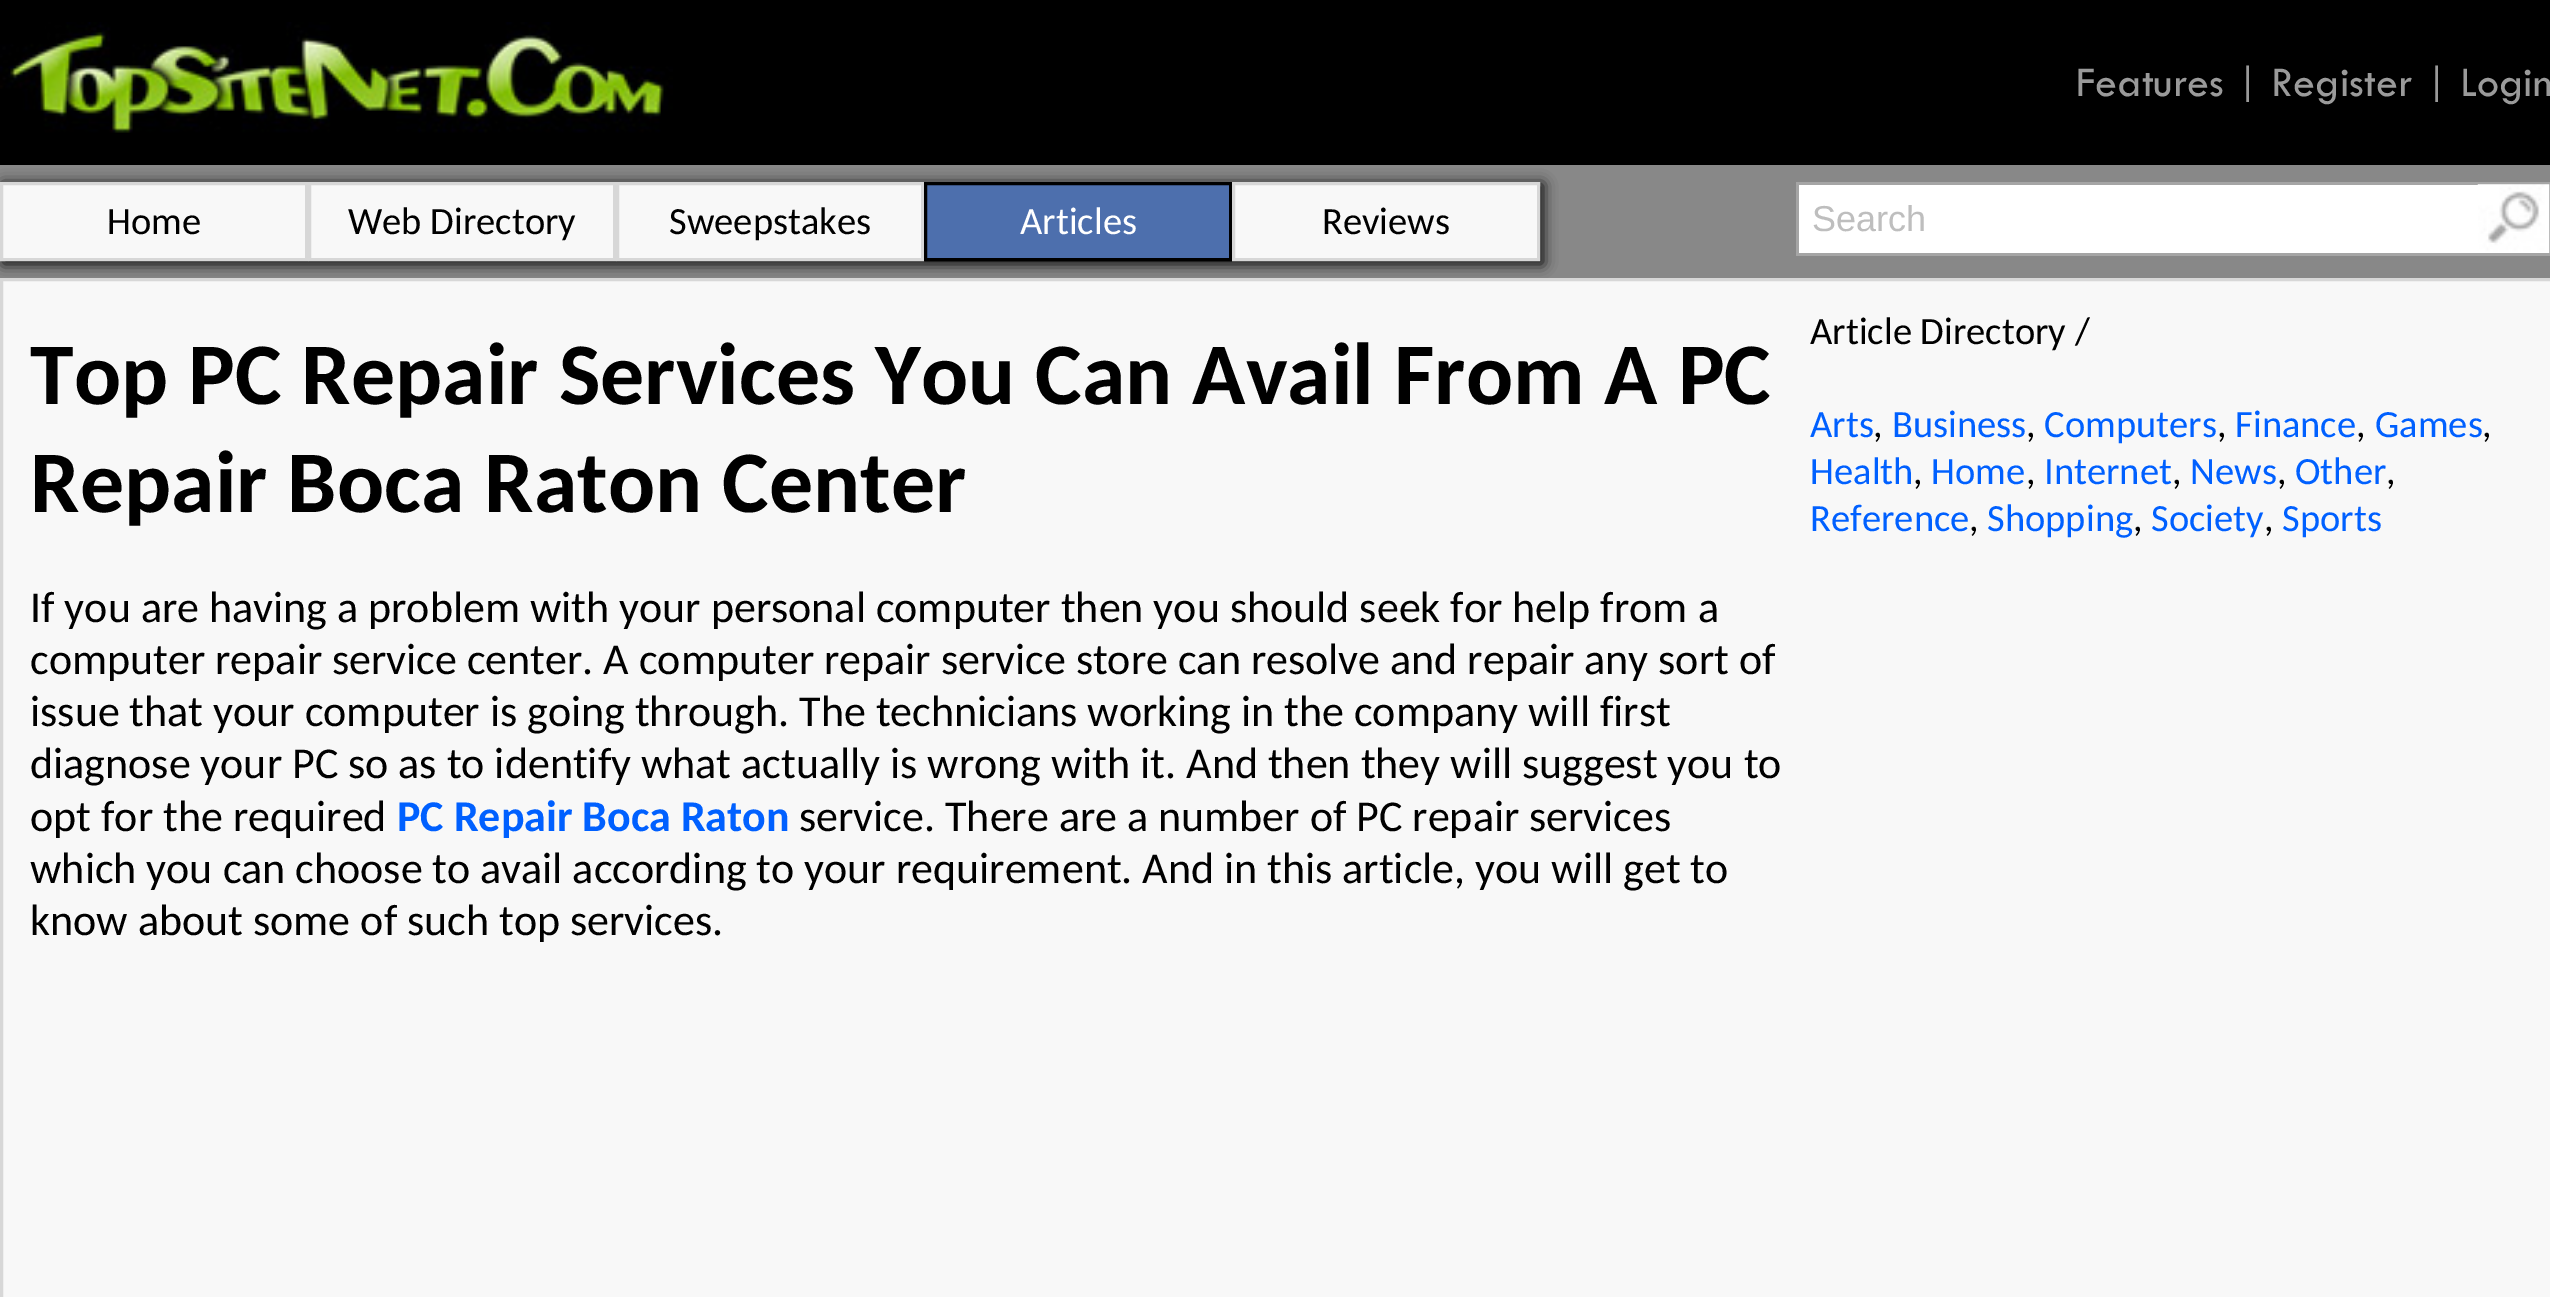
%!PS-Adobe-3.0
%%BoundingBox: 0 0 2550 1297
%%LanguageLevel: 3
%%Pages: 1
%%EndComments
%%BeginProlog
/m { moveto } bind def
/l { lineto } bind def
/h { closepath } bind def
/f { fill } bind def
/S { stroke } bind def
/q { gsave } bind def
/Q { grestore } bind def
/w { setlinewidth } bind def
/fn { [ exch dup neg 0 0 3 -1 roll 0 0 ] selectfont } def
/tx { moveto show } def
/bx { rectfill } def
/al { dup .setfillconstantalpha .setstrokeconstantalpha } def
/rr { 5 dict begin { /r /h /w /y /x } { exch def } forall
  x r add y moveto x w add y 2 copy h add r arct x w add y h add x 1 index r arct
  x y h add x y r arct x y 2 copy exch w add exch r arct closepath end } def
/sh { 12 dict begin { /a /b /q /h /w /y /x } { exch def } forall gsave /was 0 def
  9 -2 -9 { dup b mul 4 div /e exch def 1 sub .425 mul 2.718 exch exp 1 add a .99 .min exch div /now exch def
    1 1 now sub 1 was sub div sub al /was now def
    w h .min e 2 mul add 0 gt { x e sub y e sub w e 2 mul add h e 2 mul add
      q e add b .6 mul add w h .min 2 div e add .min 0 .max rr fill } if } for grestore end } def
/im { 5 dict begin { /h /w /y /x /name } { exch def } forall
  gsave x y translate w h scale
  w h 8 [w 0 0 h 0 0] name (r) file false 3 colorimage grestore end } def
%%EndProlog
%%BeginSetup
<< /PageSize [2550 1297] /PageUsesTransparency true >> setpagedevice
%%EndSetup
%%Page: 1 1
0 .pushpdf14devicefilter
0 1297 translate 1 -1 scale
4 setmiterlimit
0 setgray
0 0 2550 1297 bx
(image0.raw) 0 22 673 111 im
/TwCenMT-Regular 44 fn
0.604 setgray
(Features | Register | Login) 2076 96 tx
0.533 setgray
0 165 2550 113 bx
0 setgray
3 184 1540 80 0 7 1 sh
0.973 setgray
1.5 183.5 m 306.5 183.5 l 306.5 259.5 l 1.5 259.5 l h q f Q
0.843 setgray
3 w
S
/Carlito-Regular 38.5 fn
0 setgray
(Home) 107 234 tx
0.973 setgray
309.5 183.5 m 614.5 183.5 l 614.5 259.5 l 309.5 259.5 l h q f Q
0.843 setgray
S
0 setgray
(Web Directory) 348 234 tx
0.973 setgray
617.5 183.5 m 922.5 183.5 l 922.5 259.5 l 617.5 259.5 l h q f Q
0.843 setgray
S
0 setgray
(Sweepstakes) 669 234 tx
0.302 0.435 0.678 setrgbcolor
925.5 183.5 m 1230.5 183.5 l 1230.5 259.5 l 925.5 259.5 l h q f Q
0 setgray
S
1 setgray
(Articles) 1020 234 tx
0.973 setgray
1233.5 183.5 m 1538.5 183.5 l 1538.5 259.5 l 1233.5 259.5 l h q f Q
0.843 setgray
S
0 setgray
(Reviews) 1322 234 tx
1 setgray
1799 185 679 68 bx
0.647 setgray
1796 182 754 3 bx
1796 253 682 3 bx
1796 182 3 74 bx
/LiberationSans-Regular 36 fn
0.745 setgray
(Search) 1812 231 tx
0.647 setgray
2549 182 1 74 bx
2478 253 72 3 bx
(image1.raw) 2477 184 73 69 im
0.973 setgray
1.5 279.5 m 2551.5 279.5 l 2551.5 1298.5 l 1.5 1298.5 l h q f Q
0.843 setgray
S
/Carlito-Bold 88 fn
0 setgray
(Top PC Repair Services You Can Avail From A PC) 30 404 tx
(Repair Boca Raton Center) 30 512 tx
/Carlito-Regular 44 fn
(If you are having a problem with your personal computer then you should seek for help from a) 30 622 tx
(computer repair service center. A computer repair service store can resolve and repair any sort of) 30 674 tx
(issue that your computer is going through. The technicians working in the company will first) 30 726 tx
(diagnose your PC so as to identify what actually is wrong with it. And then they will suggest you to) 30 778 tx
(opt for the required) 30 831 tx
/Carlito-Bold 44 fn
0 0.376 1 setrgbcolor
(PC Repair Boca Raton) 397 831 tx
/Carlito-Regular 44 fn
0 setgray
(service. There are a number of PC repair services) 799 831 tx
(which you can choose to avail according to your requirement. And in this article, you will get to) 30 883 tx
(know about some of such top services.) 30 935 tx
/Carlito-Regular 38.5 fn
(Article Directory /) 1810 344 tx
0 0.376 1 setrgbcolor
(Arts) 1810 437 tx
0 setgray
(,) 1873 437 tx
0 0.376 1 setrgbcolor
(Business) 1892 437 tx
0 setgray
(,) 2026 437 tx
0 0.376 1 setrgbcolor
(Computers) 2044 437 tx
0 setgray
(,) 2217 437 tx
0 0.376 1 setrgbcolor
(Finance) 2235 437 tx
0 setgray
(,) 2356 437 tx
0 0.376 1 setrgbcolor
(Games) 2375 437 tx
0 setgray
(,) 2482 437 tx
0 0.376 1 setrgbcolor
(Health) 1810 484 tx
0 setgray
(,) 1913 484 tx
0 0.376 1 setrgbcolor
(Home) 1931 484 tx
0 setgray
(,) 2026 484 tx
0 0.376 1 setrgbcolor
(Internet) 2044 484 tx
0 setgray
(,) 2172 484 tx
0 0.376 1 setrgbcolor
(News) 2190 484 tx
0 setgray
(,) 2277 484 tx
0 0.376 1 setrgbcolor
(Other) 2295 484 tx
0 setgray
(,) 2386 484 tx
0 0.376 1 setrgbcolor
(Reference) 1810 531 tx
0 setgray
(,) 1969 531 tx
0 0.376 1 setrgbcolor
(Shopping) 1987 531 tx
0 setgray
(,) 2133 531 tx
0 0.376 1 setrgbcolor
(Society) 2151 531 tx
0 setgray
(,) 2264 531 tx
0 0.376 1 setrgbcolor
(Sports) 2282 531 tx
.poppdf14devicefilter showpage
%%EOF
